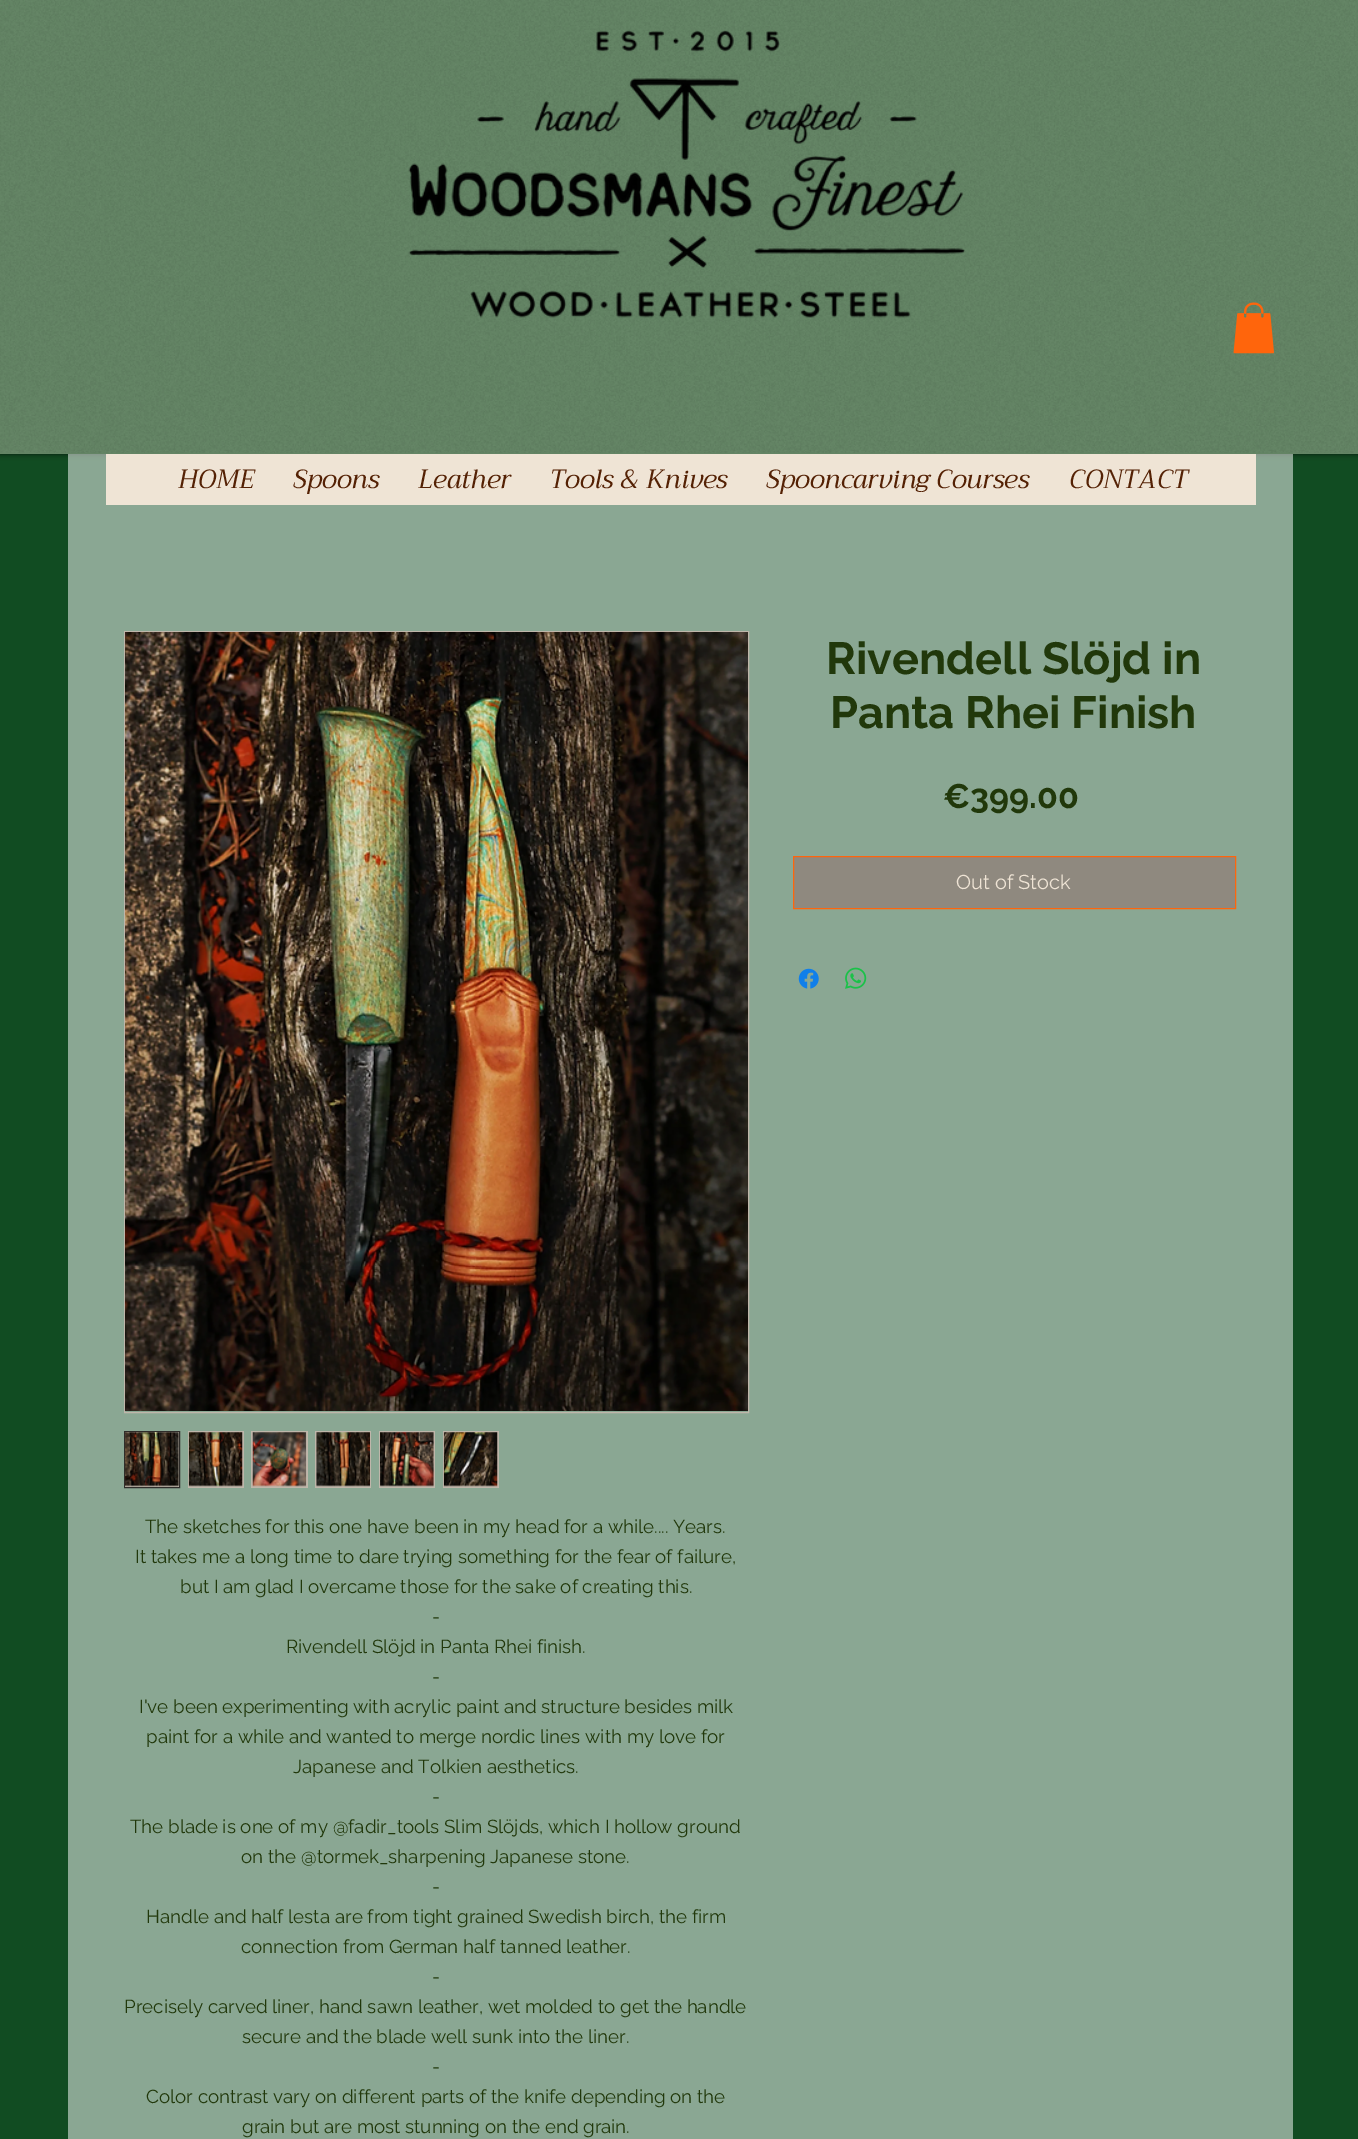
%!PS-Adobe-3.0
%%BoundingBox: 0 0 1358 2139
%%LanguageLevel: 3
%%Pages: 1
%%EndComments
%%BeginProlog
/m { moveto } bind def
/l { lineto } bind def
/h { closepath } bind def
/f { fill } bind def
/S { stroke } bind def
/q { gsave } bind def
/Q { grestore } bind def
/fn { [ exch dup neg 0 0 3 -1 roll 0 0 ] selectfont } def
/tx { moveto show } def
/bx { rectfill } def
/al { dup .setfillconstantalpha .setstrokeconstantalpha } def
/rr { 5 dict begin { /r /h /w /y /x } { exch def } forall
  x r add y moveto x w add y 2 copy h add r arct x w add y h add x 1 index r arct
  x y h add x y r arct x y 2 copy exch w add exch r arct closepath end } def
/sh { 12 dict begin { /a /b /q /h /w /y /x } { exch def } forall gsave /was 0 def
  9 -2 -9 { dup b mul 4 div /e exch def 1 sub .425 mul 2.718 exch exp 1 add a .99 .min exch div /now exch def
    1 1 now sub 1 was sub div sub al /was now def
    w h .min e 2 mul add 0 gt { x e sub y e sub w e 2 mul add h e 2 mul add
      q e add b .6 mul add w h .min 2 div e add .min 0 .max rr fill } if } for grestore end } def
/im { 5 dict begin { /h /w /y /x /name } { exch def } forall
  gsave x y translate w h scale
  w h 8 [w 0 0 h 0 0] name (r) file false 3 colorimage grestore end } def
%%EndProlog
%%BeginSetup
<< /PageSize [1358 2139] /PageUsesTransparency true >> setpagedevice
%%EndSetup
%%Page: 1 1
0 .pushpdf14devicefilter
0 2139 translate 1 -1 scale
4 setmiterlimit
0.067 0.298 0.133 setrgbcolor
0 0 1358 2139 bx
q
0 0 m 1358 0 l 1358 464 l 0 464 l h 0 -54 m 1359 -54 l 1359 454 l 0 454 l h eoclip newpath
0 setgray
0 -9 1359 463 0 3 0.7 sh
Q
0.37 al
0.937 0.894 0.835 setrgbcolor
0 0 1358 454 bx
1 al
(image0.raw) 0 0 1358 453 im
(image1.raw) 408 30 557 288 im
(image2.raw) 1233 302 41 52 im
0.51 al
1 setgray
68 454 1225 1685 bx
1 al
0.937 0.894 0.835 setrgbcolor
106 454 1150 51 bx
/Trirong-Italic 26.25 fn
0.329 0.129 0.016 setrgbcolor
(HOME) 178 488 tx
(Spoons) 293 488 tx
(Leather) 418 488 tx
(Tools & Knives) 549 488 tx
(Spooncarving Courses) 766 488 tx
(CONTACT) 1069 488 tx
/Raleway-Bold 45 fn
0.129 0.22 0.043 setrgbcolor
(Rivendell Slöjd in) 826 674 tx
(Panta Rhei Finish) 830 728 tx
/Raleway-Bold 34 fn
(€399.00) 943 808 tx
0.561 0.537 0.498 setrgbcolor
793.5 856.5 m 1235.5 856.5 l 1235.5 908.5 l 793.5 908.5 l h q f Q
1 0.396 0.047 setrgbcolor
S
/Raleway-Regular 20 fn
0.937 0.894 0.835 setrgbcolor
(Out of Stock) 956 889 tx
(image3.raw) 798 968 21 21 im
(image4.raw) 845 967 22 22 im
0.749 0.714 0.667 setrgbcolor
124.5 631.5 624 781 rectstroke
(image5.raw) 125 632 623 779 im
124.5 1431.5 m 179.5 1431.5 l 179.5 1487.5 l 124.5 1487.5 l h q f Q
0.184 0.176 0.165 setrgbcolor
S
(image6.raw) 125 1432 54 55 im
0.749 0.714 0.667 setrgbcolor
188 1431 56 57 bx
(image7.raw) 188 1432 55 55 im
251 1431 57 57 bx
(image8.raw) 252 1432 55 55 im
315 1431 56 57 bx
(image9.raw) 316 1432 54 55 im
379 1431 56 57 bx
(image10.raw) 380 1432 54 55 im
443 1431 56 57 bx
(image11.raw) 443 1432 55 55 im
/Raleway-Regular 18.75 fn
0.129 0.22 0.043 setrgbcolor
(The sketches for this one have been in my head for a while.... Years.) 145 1533 tx
(It takes me a long time to dare trying something for the fear of failure,) 135 1563 tx
(but I am glad I overcame those for the sake of creating this.) 180 1593 tx
(-) 432 1623 tx
(Rivendell Slöjd in Panta Rhei finish.) 286 1653 tx
(-) 432 1683 tx
(I've been experimenting with acrylic paint and structure besides milk) 139 1713 tx
(paint for a while and wanted to merge nordic lines with my love for) 146 1743 tx
(Japanese and Tolkien aesthetics.) 293 1773 tx
(-) 432 1803 tx
(The blade is one of my @fadir_tools Slim Slöjds, which I hollow ground) 130 1833 tx
(on the @tormek_sharpening Japanese stone.) 241 1863 tx
(-) 432 1893 tx
(Handle and half lesta are from tight grained Swedish birch, the firm) 146 1923 tx
(connection from German half tanned leather.) 241 1953 tx
(-) 432 1983 tx
(Precisely carved liner, hand sawn leather, wet molded to get the handle) 124 2013 tx
(secure and the blade well sunk into the liner.) 242 2043 tx
(-) 432 2073 tx
(Color contrast vary on different parts of the knife depending on the) 146 2103 tx
(grain but are most stunning on the end grain.) 242 2133 tx
.poppdf14devicefilter showpage
%%EOF
